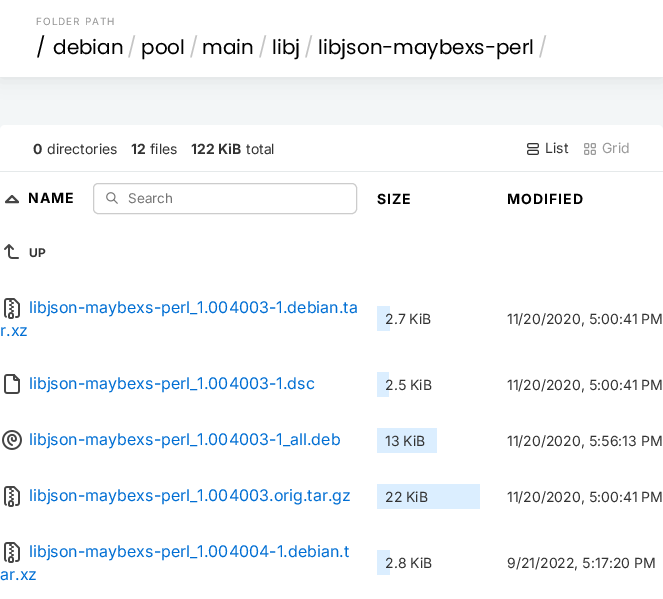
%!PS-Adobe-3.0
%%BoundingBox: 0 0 663 599
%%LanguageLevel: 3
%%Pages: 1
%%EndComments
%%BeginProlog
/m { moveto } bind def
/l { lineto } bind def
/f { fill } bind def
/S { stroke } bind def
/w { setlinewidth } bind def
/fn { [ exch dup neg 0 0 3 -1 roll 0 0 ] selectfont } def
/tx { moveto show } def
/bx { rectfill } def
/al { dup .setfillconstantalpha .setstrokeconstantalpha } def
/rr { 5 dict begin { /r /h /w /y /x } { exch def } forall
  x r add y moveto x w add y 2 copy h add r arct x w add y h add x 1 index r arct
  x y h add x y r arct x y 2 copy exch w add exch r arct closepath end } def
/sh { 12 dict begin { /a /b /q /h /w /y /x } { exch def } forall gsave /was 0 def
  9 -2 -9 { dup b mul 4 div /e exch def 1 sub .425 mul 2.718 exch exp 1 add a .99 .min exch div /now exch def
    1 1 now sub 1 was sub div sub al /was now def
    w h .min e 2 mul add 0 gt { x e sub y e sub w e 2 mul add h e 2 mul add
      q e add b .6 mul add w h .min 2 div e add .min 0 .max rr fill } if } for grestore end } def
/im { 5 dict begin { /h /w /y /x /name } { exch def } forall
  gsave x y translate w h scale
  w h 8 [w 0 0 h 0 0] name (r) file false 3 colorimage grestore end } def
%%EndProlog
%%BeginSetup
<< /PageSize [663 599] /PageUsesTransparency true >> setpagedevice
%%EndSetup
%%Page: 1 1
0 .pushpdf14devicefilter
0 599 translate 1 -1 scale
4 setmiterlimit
0.953 0.965 0.969 setrgbcolor
0 0 663 599 bx
0 setgray
0 0 663 77 0 10 0.1 sh
1 setgray
0 0 663 77 bx
/Inter-Regular 10 fn
0.576 setgray
36 25 m 1 0 (FOLDER PATH) ashow
/Poppins-Regular 20 fn
0 setgray
(/) 36 54 tx
(debian) 53 54 tx
0.773 setgray
(/) 127 54 tx
0 setgray
(pool) 141 54 tx
0.773 setgray
(/) 189 54 tx
0 setgray
(main) 202 54 tx
0.773 setgray
(/) 258 54 tx
0 setgray
(libj) 272 54 tx
0.773 setgray
(/) 304 54 tx
0 setgray
(libjson-maybexs-perl) 318 54 tx
0.773 setgray
(/) 538 54 tx
1 setgray
0 125 663 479 5 rr f
0.898 0.914 0.918 setrgbcolor
0 171 663 1 bx
/Inter-Bold 14 fn
0.2 setgray
(0) 33 154 tx
/Inter-Regular 14 fn
(directories) 47 154 tx
/Inter-Bold 14 fn
(12) 131 154 tx
/Inter-Regular 14 fn
(files) 150 154 tx
/Inter-Bold 14 fn
(122 KiB) 191 154 tx
/Inter-Regular 14 fn
(total) 246 154 tx
(image0.raw) 527 143 12 12 im
(List) 545 153 tx
(image1.raw) 584 143 12 12 im
0.604 setgray
(Grid) 602 153 tx
0.271 setgray
2 w
1 setlinecap
1 setlinejoin
18 202 m 12 196 l 6 202 l 18 202 l S
/Inter-Bold 14 fn
0 setgray
28 203 m 1 0 (NAME) ashow
(image2.raw) 106 192 12 12 im
0.8 setgray
1 w
0 setlinecap
0 setlinejoin
93.5 183.5 263 30 4.5 rr S
/Inter-Regular 13.5 fn
0.459 setgray
(Search) 128 203 tx
/Inter-Bold 14 fn
0 setgray
377 204 m 1 0 (SIZE) ashow
507 204 m 1 0 (MODIFIED) ashow
(image3.raw) 4 244 15 15 im
/Inter-Bold 12 fn
0.2 setgray
(UP) 29 257 tx
(image4.raw) 4 298 16 21 im
/Inter-Regular 16 fn
0 0.431 0.827 setrgbcolor
(libjson-maybexs-perl_1.004003-1.debian.ta) 29 313 tx
(r.xz) 0 336 tx
0.859 0.933 1 setrgbcolor
377 306 13 25 bx
/Inter-Regular 14 fn
0.2 setgray
(2.7 KiB) 385 324 tx
(11/20/2020, 5:00:41 PM) 507 324 tx
(image5.raw) 4 374 16 20 im
/Inter-Regular 16 fn
0 0.431 0.827 setrgbcolor
(libjson-maybexs-perl_1.004003-1.dsc) 29 389 tx
0.859 0.933 1 setrgbcolor
377 372 12 25 bx
/Inter-Regular 14 fn
0.2 setgray
(2.5 KiB) 385 390 tx
(11/20/2020, 5:00:41 PM) 507 390 tx
(image6.raw) 2 430 20 20 im
/Inter-Regular 16 fn
0 0.431 0.827 setrgbcolor
(libjson-maybexs-perl_1.004003-1_all.deb) 29 445 tx
0.859 0.933 1 setrgbcolor
377 428 60 25 bx
/Inter-Regular 14 fn
0.2 setgray
(13 KiB) 385 446 tx
(11/20/2020, 5:56:13 PM) 507 446 tx
(image4.raw) 4 486 16 21 im
/Inter-Regular 16 fn
0 0.431 0.827 setrgbcolor
(libjson-maybexs-perl_1.004003.orig.tar.gz) 29 501 tx
0.859 0.933 1 setrgbcolor
377 484 103 25 bx
/Inter-Regular 14 fn
0.2 setgray
(22 KiB) 385 502 tx
(11/20/2020, 5:00:41 PM) 507 502 tx
(image4.raw) 4 542 16 21 im
/Inter-Regular 16 fn
0 0.431 0.827 setrgbcolor
(libjson-maybexs-perl_1.004004-1.debian.t) 29 557 tx
(ar.xz) 0 580 tx
0.859 0.933 1 setrgbcolor
377 550 13 25 bx
/Inter-Regular 14 fn
0.2 setgray
(2.8 KiB) 385 568 tx
(9/21/2022, 5:17:20 PM) 507 568 tx
.poppdf14devicefilter showpage
%%EOF
